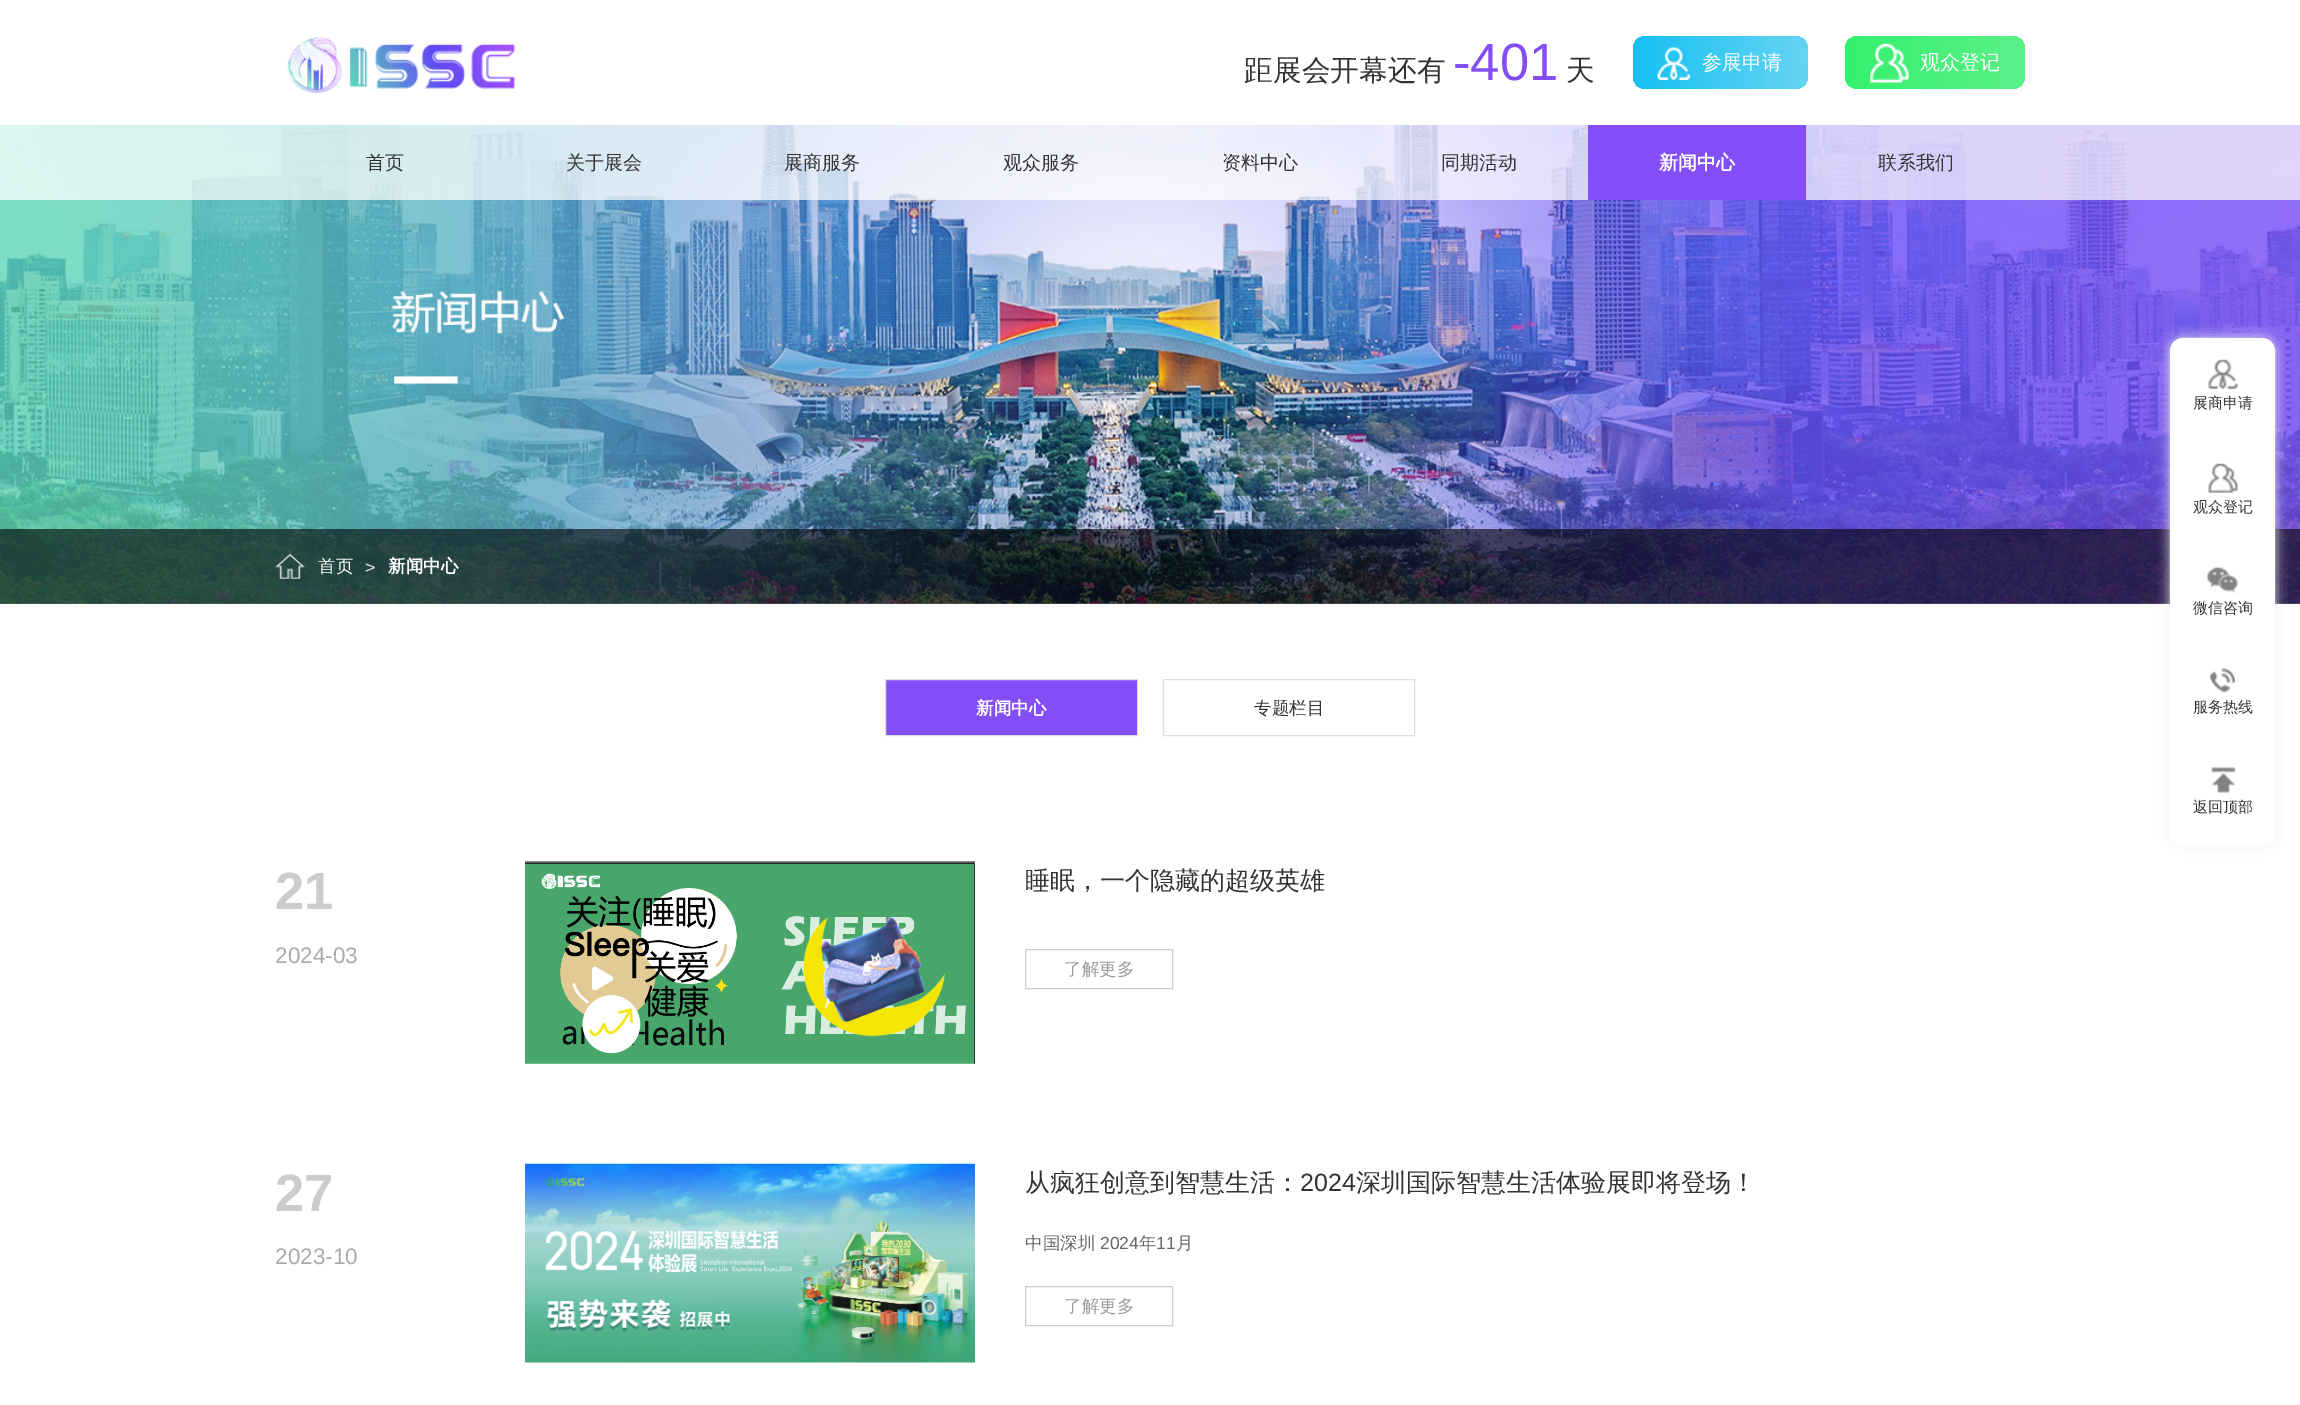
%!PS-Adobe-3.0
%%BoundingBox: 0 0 2300 1405
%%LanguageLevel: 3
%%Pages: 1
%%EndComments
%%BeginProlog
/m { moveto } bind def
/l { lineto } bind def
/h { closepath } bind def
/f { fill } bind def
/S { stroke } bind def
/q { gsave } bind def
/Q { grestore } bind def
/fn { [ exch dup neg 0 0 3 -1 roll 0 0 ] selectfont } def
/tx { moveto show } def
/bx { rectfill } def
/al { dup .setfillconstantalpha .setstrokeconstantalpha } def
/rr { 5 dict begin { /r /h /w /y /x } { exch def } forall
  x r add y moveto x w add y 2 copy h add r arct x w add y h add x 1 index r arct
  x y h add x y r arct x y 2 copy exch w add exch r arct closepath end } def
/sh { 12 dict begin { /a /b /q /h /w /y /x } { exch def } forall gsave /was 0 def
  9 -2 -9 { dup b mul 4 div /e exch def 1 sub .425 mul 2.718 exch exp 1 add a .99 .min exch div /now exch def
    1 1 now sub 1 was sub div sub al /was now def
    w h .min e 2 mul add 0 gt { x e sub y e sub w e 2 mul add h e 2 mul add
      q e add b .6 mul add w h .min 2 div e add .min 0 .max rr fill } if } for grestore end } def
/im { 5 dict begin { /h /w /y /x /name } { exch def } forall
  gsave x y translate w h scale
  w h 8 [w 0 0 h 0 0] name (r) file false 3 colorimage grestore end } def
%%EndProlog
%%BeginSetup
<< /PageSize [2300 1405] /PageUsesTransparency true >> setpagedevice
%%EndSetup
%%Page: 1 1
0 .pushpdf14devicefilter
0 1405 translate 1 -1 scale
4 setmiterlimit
1 setgray
0 0 2300 1405 bx
(image0.raw) 287 36 229 58 im
/WenQuanYiZenHei-Medium 28.75 fn
0.2 setgray
(距展会开幕还有) 1244 80 tx
/LiberationSans-Regular 52.5 fn
0.514 0.306 0.961 setrgbcolor
(-401) 1453 80 tx
/WenQuanYiZenHei-Medium 28.75 fn
0.2 setgray
(天) 1566 80 tx
q 1633 36 175 53 13 rr clip newpath
<< /ShadingType 2 /ColorSpace /DeviceRGB /Coords [1633 63 1808 62] /Extend [true true] /Function << /FunctionType 2 /Domain [0 1] /C0 [0.082 0.753 0.945] /C1 [0.4 0.831 0.953] /N 1 >> >> shfill Q
(image1.raw) 1657 47 33 33 im
/WenQuanYiZenHei-Medium 20 fn
1 setgray
(参展申请) 1702 69 tx
q 1845 36 180 53 13 rr clip newpath
<< /ShadingType 2 /ColorSpace /DeviceRGB /Coords [1845 63 2025 62] /Extend [true true] /Function << /FunctionType 2 /Domain [0 1] /C0 [0.204 0.941 0.427] /C1 [0.357 0.945 0.537] /N 1 >> >> shfill Q
(image2.raw) 1870 43 39 40 im
(观众登记) 1920 69 tx
(image3.raw) 0 125 2300 479 im
0.7 al
0 125 2300 75 bx
/WenQuanYiZenHei-Medium 19 fn
1 al
0.2 setgray
(首页) 366 169 tx
(关于展会) 566 169 tx
(展商服务) 784 169 tx
(观众服务) 1003 169 tx
(资料中心) 1222 169 tx
(同期活动) 1441 169 tx
0.514 0.306 0.961 setrgbcolor
1588 125 218 75 bx
/WenQuanYiZenHei-Bold 19 fn
1 setgray
(新闻中心) 1659 169 tx
/WenQuanYiZenHei-Medium 19 fn
0.2 setgray
(联系我们) 1878 169 tx
0.6 al
0 setgray
0 529 2300 75 bx
1 al
(image4.raw) 275 553 30 26 im
/WenQuanYiZenHei-Medium 17.5 fn
1 setgray
(首页) 318 572 tx
/DejaVuSansMono-Regular 17.5 fn
0.867 setgray
(>) 365 573 tx
/WenQuanYiZenHei-Bold 17.5 fn
1 setgray
(新闻中心) 388 572 tx
0.514 0.306 0.961 setrgbcolor
885.5 679.5 m 1137.5 679.5 l 1137.5 735.5 l 885.5 735.5 l h q f Q
0.867 setgray
S
1 setgray
(新闻中心) 976 714 tx
0.867 setgray
1163.5 679.5 251 56 rectstroke
/WenQuanYiZenHei-Medium 17.5 fn
0.2 setgray
(专题栏目) 1254 714 tx
/LiberationSans-Bold 52.5 fn
0.8 setgray
(21) 275 909 tx
/LiberationSans-Regular 22.5 fn
0.667 setgray
(2024-03) 275 963 tx
(image5.raw) 525 861 450 203 im
/WenQuanYiZenHei-Medium 25 fn
0.2 setgray
(睡眠，一个隐藏的超级英雄) 1025 889 tx
0.8 setgray
1025.5 949.5 147 39 rectstroke
/WenQuanYiZenHei-Medium 17.5 fn
0.6 setgray
(了解更多) 1064 975 tx
/LiberationSans-Bold 52.5 fn
0.8 setgray
(27) 275 1211 tx
/LiberationSans-Regular 22.5 fn
0.667 setgray
(2023-10) 275 1264 tx
(image6.raw) 525 1163 450 200 im
/WenQuanYiZenHei-Medium 25 fn
0.2 setgray
(从疯狂创意到智慧生活：) 1025 1191 tx
/LiberationSans-Regular 25 fn
(2024) 1300 1191 tx
/WenQuanYiZenHei-Medium 25 fn
(深圳国际智慧生活体验展即将登场！) 1356 1191 tx
/WenQuanYiZenHei-Medium 17.5 fn
0.4 setgray
(中国深圳) 1025 1249 tx
/LiberationSans-Regular 17.5 fn
(2024) 1100 1249 tx
/WenQuanYiZenHei-Medium 17.5 fn
(年) 1139 1249 tx
/LiberationSans-Regular 17.5 fn
(11) 1156 1249 tx
/WenQuanYiZenHei-Medium 17.5 fn
(月) 1176 1249 tx
0.8 setgray
1025.5 1286.5 147 39 rectstroke
0.6 setgray
(了解更多) 1064 1312 tx
0.937 setgray
2170 338 105 507 13 6 1 sh
1 setgray
2170 338 105 507 13 rr f
(image7.raw) 2208 359 30 30 im
/WenQuanYiZenHei-Medium 15 fn
0.2 setgray
(展商申请) 2193 408 tx
(image8.raw) 2208 463 30 30 im
(观众登记) 2193 512 tx
(image9.raw) 2207 566 31 28 im
(微信咨询) 2193 613 tx
(image10.raw) 2210 668 25 25 im
(服务热线) 2193 712 tx
(image11.raw) 2211 767 24 26 im
(返回顶部) 2193 812 tx
.poppdf14devicefilter showpage
%%EOF
